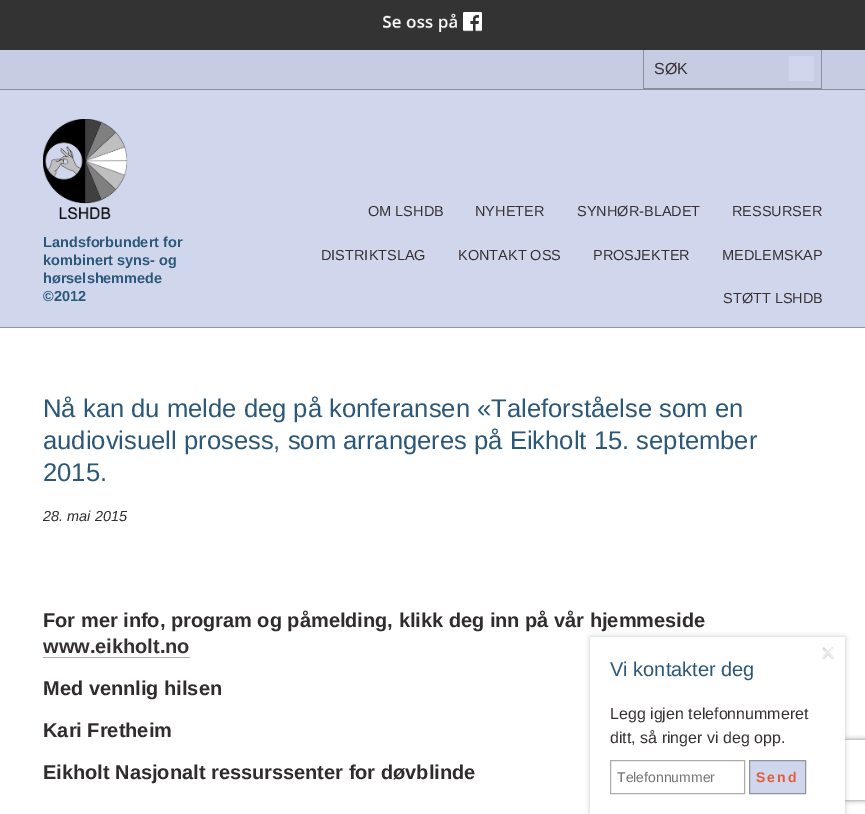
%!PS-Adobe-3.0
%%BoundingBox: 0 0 865 814
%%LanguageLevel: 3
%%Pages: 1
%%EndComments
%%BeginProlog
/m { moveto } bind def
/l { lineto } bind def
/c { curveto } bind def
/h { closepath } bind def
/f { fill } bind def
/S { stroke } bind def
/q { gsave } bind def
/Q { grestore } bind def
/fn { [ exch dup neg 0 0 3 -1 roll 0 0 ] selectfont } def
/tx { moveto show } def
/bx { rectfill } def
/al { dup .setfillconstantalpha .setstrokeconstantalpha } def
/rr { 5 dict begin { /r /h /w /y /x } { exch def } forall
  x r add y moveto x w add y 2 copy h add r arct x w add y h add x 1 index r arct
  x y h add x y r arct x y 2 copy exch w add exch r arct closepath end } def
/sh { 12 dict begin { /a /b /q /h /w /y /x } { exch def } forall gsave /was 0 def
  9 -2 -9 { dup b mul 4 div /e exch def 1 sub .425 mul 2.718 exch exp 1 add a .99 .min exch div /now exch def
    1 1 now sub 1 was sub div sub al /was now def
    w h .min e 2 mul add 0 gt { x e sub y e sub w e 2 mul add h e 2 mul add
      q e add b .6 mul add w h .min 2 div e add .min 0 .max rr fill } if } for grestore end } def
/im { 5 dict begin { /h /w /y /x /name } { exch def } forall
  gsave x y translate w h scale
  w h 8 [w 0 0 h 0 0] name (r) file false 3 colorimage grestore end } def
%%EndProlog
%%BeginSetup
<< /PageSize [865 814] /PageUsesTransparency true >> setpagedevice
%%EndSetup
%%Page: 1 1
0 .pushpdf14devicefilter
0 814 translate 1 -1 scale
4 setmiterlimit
0.816 0.843 0.929 setrgbcolor
0 0 865 814 bx
0.776 0.8 0.882 setrgbcolor
0 50 865 39 bx
0.549 0.557 0.608 setrgbcolor
0 89 865 1 bx
822 50 m 822 89 l 821 88 l 821 50 l h f
0.4 al
0.212 0.188 0.196 setrgbcolor
822 89 m 643 89 l 644 88 l 821 88 l h f
643 89 m 643 50 l 644 50 l 644 88 l h f
/LiberationSans-Regular 16 fn
1 al
(SØK) 654 74 tx
0.816 0.843 0.929 setrgbcolor
789 56 25 25 bx
0.573 0.58 0.635 setrgbcolor
0 327 865 1 bx
(image0.raw) 43 119 84 100 im
/LiberationSans-Bold 14.5 fn
0.169 0.341 0.471 setrgbcolor
(Landsforbundert for) 43 247 tx
(kombinert syns- og) 43 265 tx
(hørselshemmede) 43 283 tx
(©2012) 43 301 tx
/LiberationSans-Regular 14.5 fn
0.212 0.188 0.196 setrgbcolor
(OM LSHDB) 368 216 tx
(NYHETER) 475 216 tx
(SYNHØR-BLADET) 577 216 tx
(RESSURSER) 732 216 tx
(DISTRIKTSLAG) 321 260 tx
(KONTAKT OSS) 458 260 tx
(PROSJEKTER) 593 260 tx
(MEDLEMSKAP) 722 260 tx
(STØTT LSHDB) 723 303 tx
1 setgray
0 328 865 486 bx
0.2 setgray
0 0 865 50 bx
(image1.raw) 383 12 99 20 im
/LiberationSans-Regular 25.6 fn
0.169 0.341 0.471 setrgbcolor
(Nå kan du melde deg på konferansen «Taleforståelse som en) 43 417 tx
(audiovisuell prosess, som arrangeres på Eikholt 15. september) 43 449 tx
(2015.) 43 481 tx
/LiberationSans-Italic 14.5 fn
0.188 0.169 0.173 setrgbcolor
(28. mai 2015) 43 521 tx
/LiberationSans-Bold 20 fn
(For mer info, program og påmelding, klikk deg inn på vår hjemmeside) 43 627 tx
0.212 0.188 0.196 setrgbcolor
(www.eikholt.no) 43 653 tx
0.686 0.675 0.678 setrgbcolor
43 657 147 1 bx
0.188 0.169 0.173 setrgbcolor
(Med vennlig hilsen) 43 695 tx
(Kari Fretheim) 43 737 tx
(Eikholt Nasjonalt ressurssenter for døvblinde) 43 779 tx
0 setgray
590 637 255 177 0 2.5 0.2 sh
q
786 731 m 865 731 l 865 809 l 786 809 l h 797 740 m 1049 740 l 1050 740 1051 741 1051 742 c 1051 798 l 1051 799 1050 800 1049 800 c 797 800 l 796 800 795 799 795 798 c 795 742 l 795 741 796 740 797 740 c h eoclip newpath
0.502 setgray
795 740 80 60 2 2.5 1 sh
Q
1 setgray
590 637 255 177 bx
(image2.raw) 822 647 12 12 im
/LiberationSans-Regular 20 fn
0.169 0.341 0.471 setrgbcolor
(Vi kontakter deg) 610 676 tx
/LiberationSans-Regular 16 fn
0.212 0.188 0.196 setrgbcolor
(Legg igjen telefonnummeret) 610 719 tx
(ditt, så ringer vi deg opp.) 610 743 tx
0.686 0.675 0.678 setrgbcolor
610.5 760.5 134 33 rectstroke
/LiberationSans-Regular 14 fn
0.459 setgray
(Telefonnummer) 617 782 tx
0.816 0.843 0.929 setrgbcolor
749.5 760.5 m 805.5 760.5 l 805.5 793.5 l 749.5 793.5 l h q f Q
0.573 0.58 0.635 setrgbcolor
S
/LiberationSans-Bold 14 fn
0.89 0.361 0.212 setrgbcolor
756 782 m 2 0 (Send) ashow
.poppdf14devicefilter showpage
%%EOF
